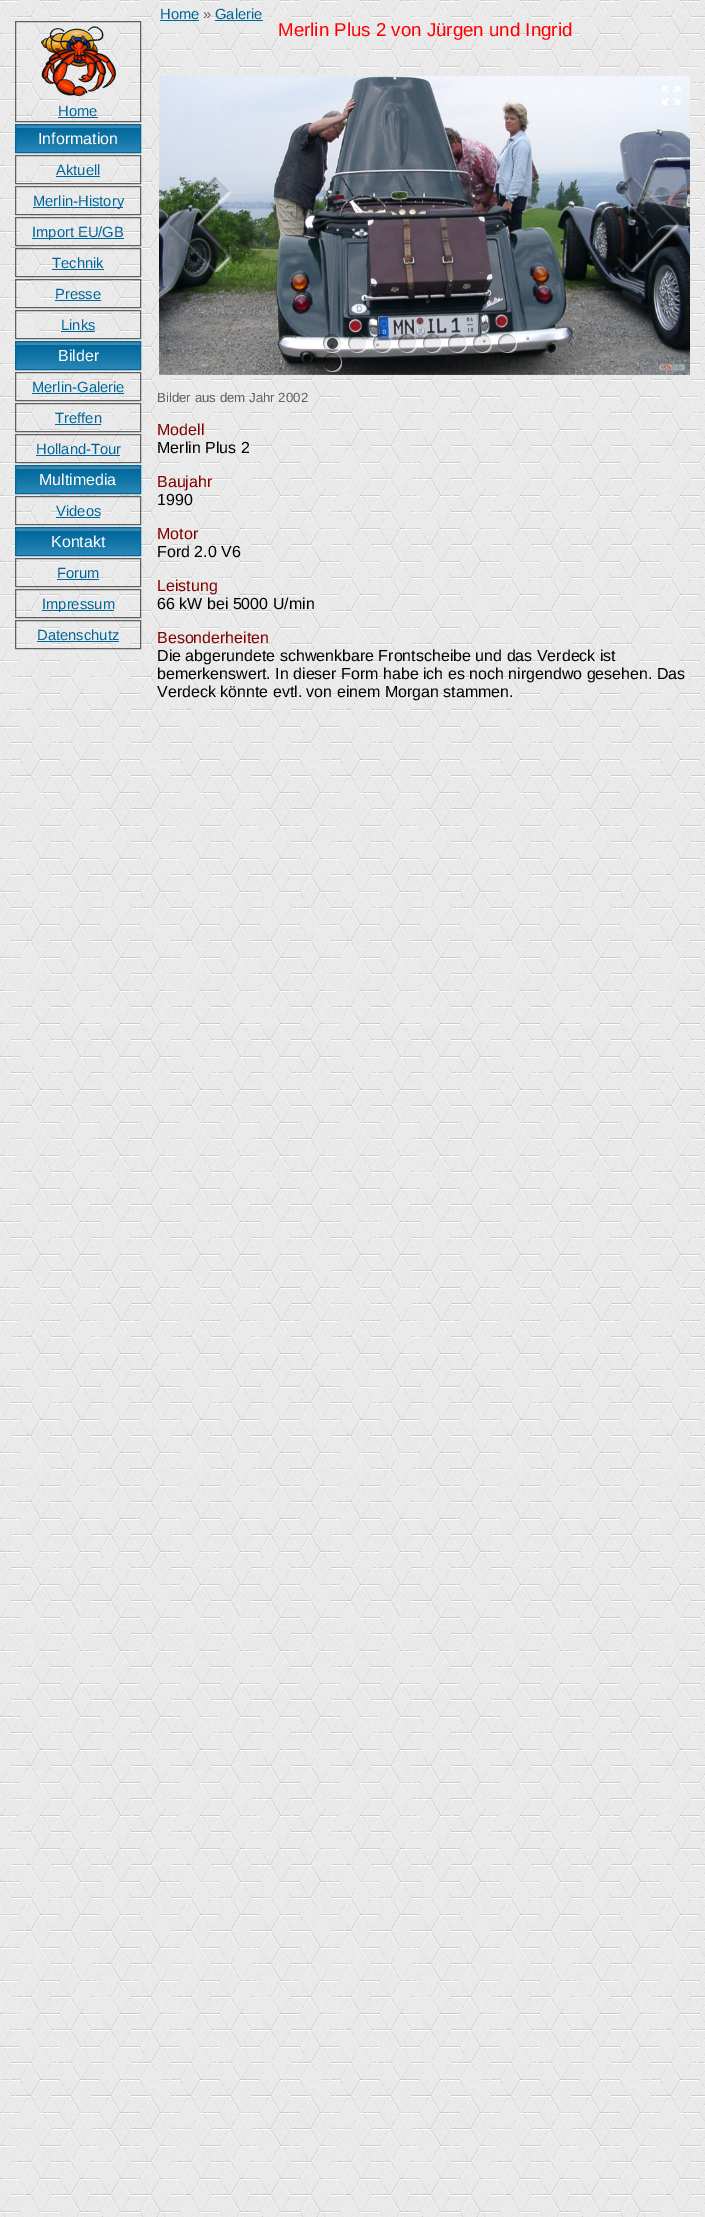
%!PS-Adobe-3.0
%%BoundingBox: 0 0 705 2217
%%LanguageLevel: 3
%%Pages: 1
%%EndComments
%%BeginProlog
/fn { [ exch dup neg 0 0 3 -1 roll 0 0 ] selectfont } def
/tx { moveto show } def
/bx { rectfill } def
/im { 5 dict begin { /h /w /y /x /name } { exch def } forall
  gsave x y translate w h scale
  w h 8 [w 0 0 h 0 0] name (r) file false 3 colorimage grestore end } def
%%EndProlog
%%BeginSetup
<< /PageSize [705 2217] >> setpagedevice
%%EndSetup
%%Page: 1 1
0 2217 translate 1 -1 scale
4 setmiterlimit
1 setgray
0 0 705 2217 bx
(image0.raw) 0 0 705 2217 im
0.376 setgray
15.5 21.5 125 100 rectstroke
(image1.raw) 41 26 75 70 im
/LiberationSans-Regular 14.75 fn
0 0.4 0.6 setrgbcolor
(Home) 58 116 tx
58 117 40 1 bx
(image2.raw) 16 125 124 27 im
15.5 124.5 125 28 rectstroke
/LiberationSans-Regular 16 fn
1 setgray
(Information) 38 144 tx
0.376 setgray
15.5 155.5 125 28 rectstroke
/LiberationSans-Regular 14.75 fn
0 0.4 0.6 setrgbcolor
(Aktuell) 56 175 tx
56 176 44 1 bx
0.376 setgray
15.5 186.5 125 28 rectstroke
0 0.4 0.6 setrgbcolor
33 207 90 1 bx
(Merlin-History) 33 206 tx
0.376 setgray
15.5 217.5 125 28 rectstroke
0 0.4 0.6 setrgbcolor
32 238 92 1 bx
(Import EU/GB) 32 237 tx
0.376 setgray
15.5 248.5 125 28 rectstroke
0 0.4 0.6 setrgbcolor
(Technik) 52 268 tx
52 269 52 1 bx
0.376 setgray
15.5 279.5 125 28 rectstroke
0 0.4 0.6 setrgbcolor
(Presse) 55 299 tx
55 300 46 1 bx
0.376 setgray
15.5 310.5 125 28 rectstroke
0 0.4 0.6 setrgbcolor
(Links) 61 330 tx
61 331 34 1 bx
(image2.raw) 16 342 124 27 im
15.5 341.5 125 28 rectstroke
/LiberationSans-Regular 16 fn
1 setgray
(Bilder) 58 361 tx
0.376 setgray
15.5 372.5 125 28 rectstroke
/LiberationSans-Regular 14.75 fn
0 0.4 0.6 setrgbcolor
(Merlin-Galerie) 32 392 tx
32 393 92 1 bx
0.376 setgray
15.5 403.5 125 28 rectstroke
0 0.4 0.6 setrgbcolor
(Treffen) 55 423 tx
55 424 46 1 bx
0.376 setgray
15.5 434.5 125 28 rectstroke
0 0.4 0.6 setrgbcolor
(Holland-Tour) 36 454 tx
36 455 84 1 bx
(image2.raw) 16 466 124 27 im
15.5 465.5 125 28 rectstroke
/LiberationSans-Regular 16 fn
1 setgray
(Multimedia) 39 485 tx
0.376 setgray
15.5 496.5 125 28 rectstroke
/LiberationSans-Regular 14.75 fn
0 0.4 0.6 setrgbcolor
(Videos) 56 516 tx
56 517 44 1 bx
(image2.raw) 16 528 124 27 im
15.5 527.5 125 28 rectstroke
/LiberationSans-Regular 16 fn
1 setgray
(Kontakt) 51 547 tx
0.376 setgray
15.5 558.5 125 28 rectstroke
/LiberationSans-Regular 14.75 fn
0 0.4 0.6 setrgbcolor
(Forum) 57 578 tx
57 579 42 1 bx
0.376 setgray
15.5 589.5 125 28 rectstroke
0 0.4 0.6 setrgbcolor
42 610 72 1 bx
(Impressum) 42 609 tx
0.376 setgray
15.5 620.5 125 28 rectstroke
0 0.4 0.6 setrgbcolor
(Datenschutz) 37 640 tx
37 641 82 1 bx
(Home) 160 19 tx
160 20 39 1 bx
0.376 setgray
(») 203 19 tx
0 0.4 0.6 setrgbcolor
(Galerie) 215 19 tx
215 20 48 1 bx
/LiberationSans-Regular 18.7 fn
1 0 0 setrgbcolor
(Merlin Plus 2 von Jürgen und Ingrid) 278 36 tx
(image3.raw) 159 76 531 299 im
(image4.raw) 662 86 19 19 im
(image5.raw) 169 177 63 95 im
(image6.raw) 617 177 63 95 im
(image7.raw) 323 334 19 19 im
(image8.raw) 348 334 19 19 im
(image9.raw) 373 334 19 19 im
(image10.raw) 398 334 19 19 im
(image11.raw) 423 334 19 19 im
(image12.raw) 448 334 19 19 im
(image13.raw) 473 334 19 19 im
(image14.raw) 498 334 19 19 im
(image15.raw) 323 353 19 19 im
/LiberationSans-Regular 13.25 fn
0.376 setgray
(Bilder aus dem Jahr 2002) 157 402 tx
/LiberationSans-Regular 16 fn
0.502 0 0 setrgbcolor
(Modell) 157 435 tx
0 setgray
(Merlin Plus 2) 157 453 tx
0.502 0 0 setrgbcolor
(Baujahr) 157 487 tx
0 setgray
(1990) 157 505 tx
0.502 0 0 setrgbcolor
(Motor) 157 539 tx
0 setgray
(Ford 2.0 V6) 157 557 tx
0.502 0 0 setrgbcolor
(Leistung) 157 591 tx
0 setgray
(66 kW bei 5000 U/min) 157 609 tx
0.502 0 0 setrgbcolor
(Besonderheiten) 157 643 tx
0 setgray
(Die abgerundete schwenkbare Frontscheibe und das Verdeck ist) 157 661 tx
(bemerkenswert. In dieser Form habe ich es noch nirgendwo gesehen. Das) 157 679 tx
(Verdeck könnte evtl. von einem Morgan stammen.) 157 697 tx
showpage
%%EOF
